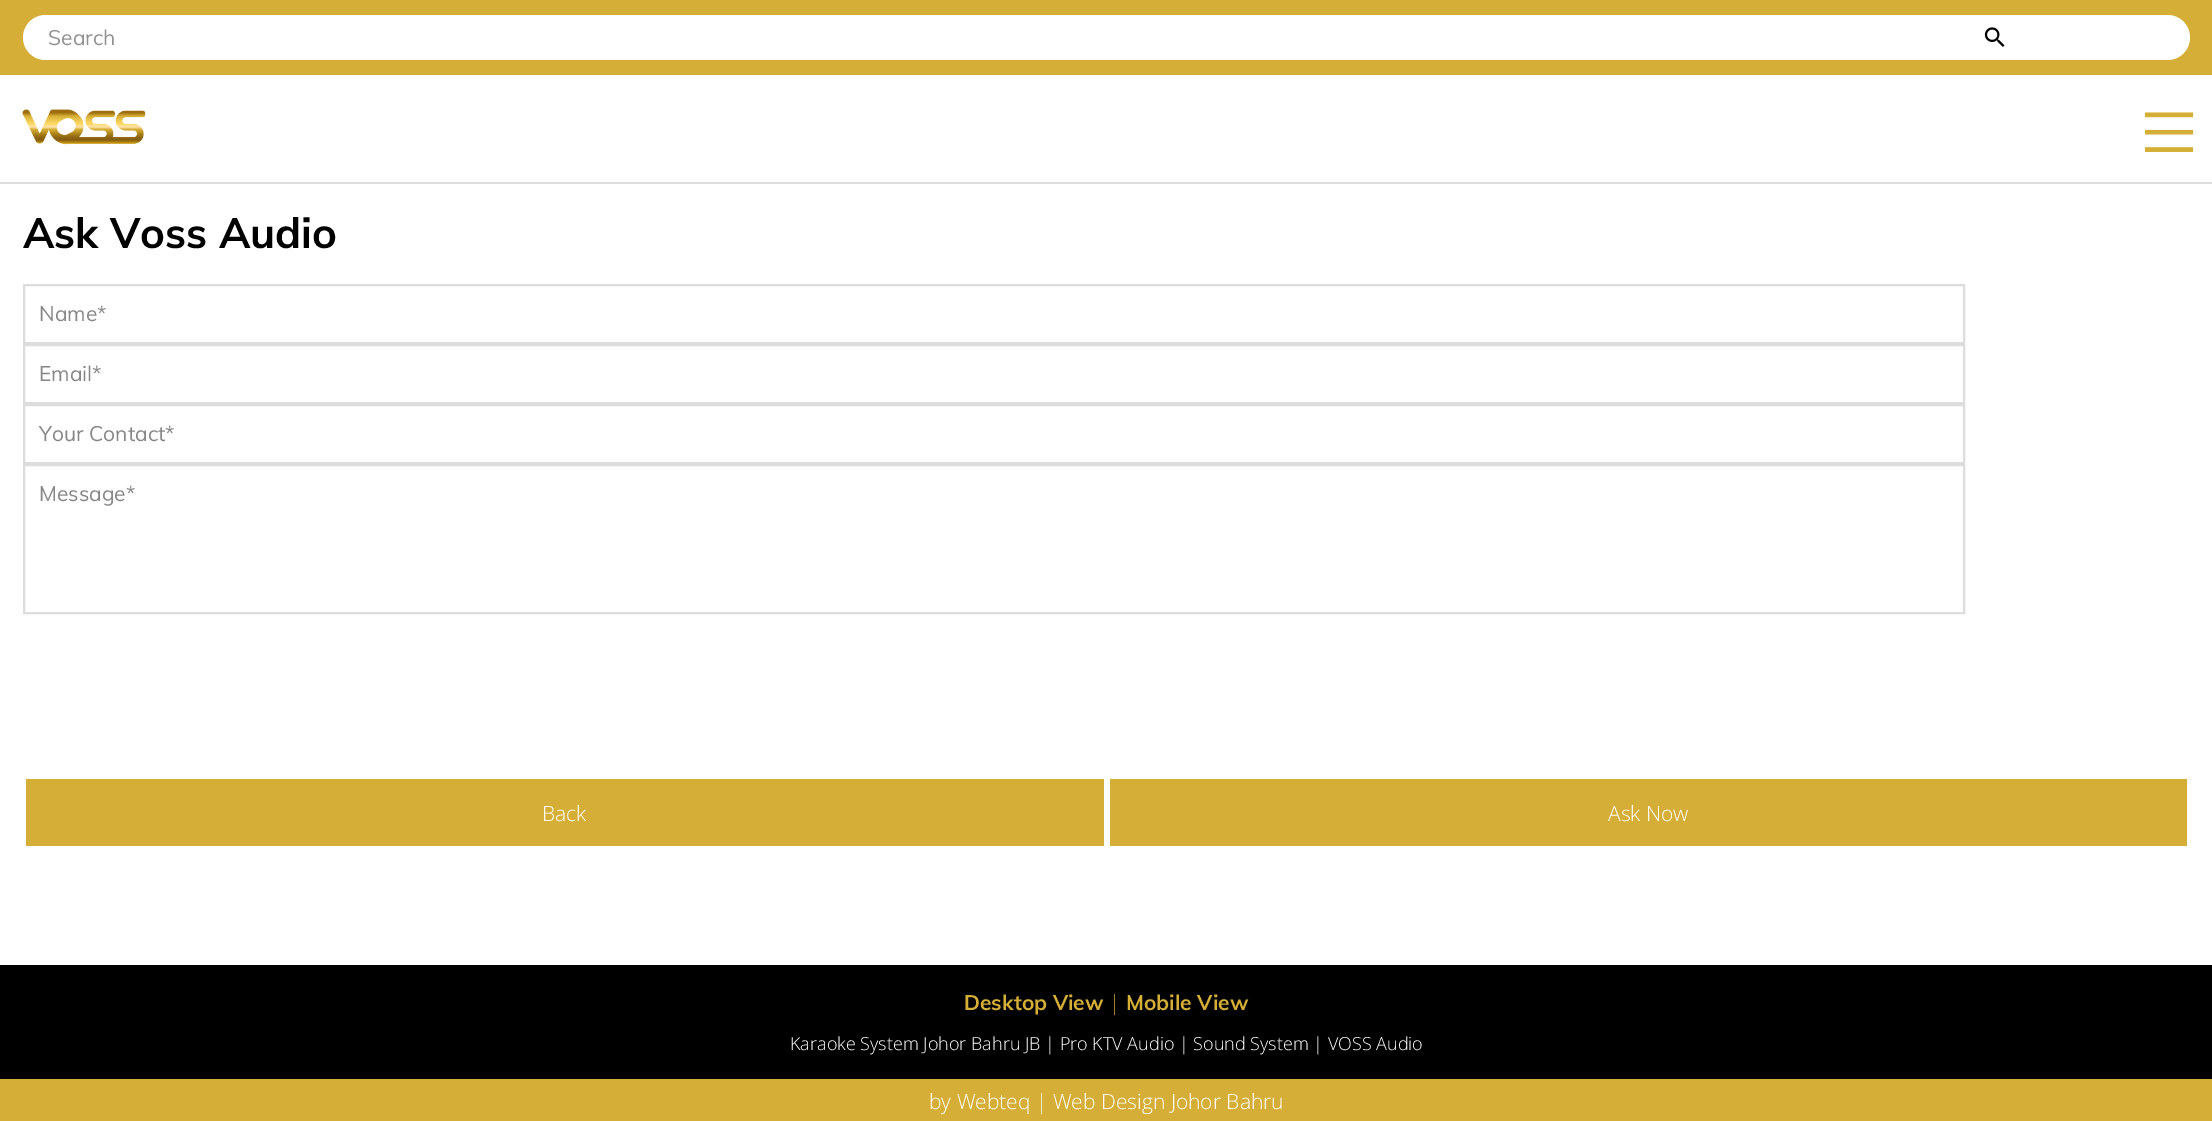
%!PS-Adobe-3.0
%%BoundingBox: 0 0 2212 1121
%%LanguageLevel: 3
%%Pages: 1
%%EndComments
%%BeginProlog
/f { fill } bind def
/w { setlinewidth } bind def
/fn { [ exch dup neg 0 0 3 -1 roll 0 0 ] selectfont } def
/tx { moveto show } def
/bx { rectfill } def
/rr { 5 dict begin { /r /h /w /y /x } { exch def } forall
  x r add y moveto x w add y 2 copy h add r arct x w add y h add x 1 index r arct
  x y h add x y r arct x y 2 copy exch w add exch r arct closepath end } def
/im { 5 dict begin { /h /w /y /x /name } { exch def } forall
  gsave x y translate w h scale
  w h 8 [w 0 0 h 0 0] name (r) file false 3 colorimage grestore end } def
%%EndProlog
%%BeginSetup
<< /PageSize [2212 1121] >> setpagedevice
%%EndSetup
%%Page: 1 1
0 1121 translate 1 -1 scale
4 setmiterlimit
1 setgray
0 0 2212 1121 bx
0.867 setgray
0 182 2212 2 bx
0.835 0.682 0.216 setrgbcolor
0 0 2212 75 bx
1 setgray
23 15 2167 45 22.5 rr f
/Muli-Regular 21 fn
0.569 setgray
(Search) 48 45 tx
(image0.raw) 1984 27 21 20 im
(image1.raw) 22 109 124 36 im
(image2.raw) 2145 112 49 40 im
/Muli-Bold 42 fn
0 setgray
(Ask Voss Audio) 23 248 tx
0.867 setgray
2 w
24 285 1940 58 rectstroke
/Muli-Regular 21 fn
0.525 setgray
(Name*) 39 321 tx
0.867 setgray
24 345 1940 58 rectstroke
0.525 setgray
(Email*) 39 381 tx
0.867 setgray
24 405 1940 58 rectstroke
0.525 setgray
(Your Contact*) 39 441 tx
0.867 setgray
24 465 1940 148 rectstroke
0.525 setgray
(Message*) 39 501 tx
0.835 0.682 0.216 setrgbcolor
26 779 1078 67 bx
/OpenSans-Light 21 fn
1 setgray
(Back) 542 821 tx
0.835 0.682 0.216 setrgbcolor
1110 779 1077 67 bx
1 setgray
(Ask Now) 1608 821 tx
0 setgray
0 965 2212 114 bx
/Muli-Bold 21 fn
0.835 0.682 0.216 setrgbcolor
(Desktop View) 964 1010 tx
/OpenSans-Light 21 fn
(|) 1109 1010 tx
/Muli-Bold 21 fn
(Mobile View) 1126 1010 tx
/OpenSans-Light 18 fn
1 setgray
(Karaoke System Johor Bahru JB | Pro KTV Audio | Sound System | VOSS Audio) 790 1050 tx
0.835 0.682 0.216 setrgbcolor
0 1079 2212 42 bx
/OpenSans-Light 21 fn
1 setgray
(by Webteq | Web Design Johor Bahru) 929 1109 tx
showpage
%%EOF
